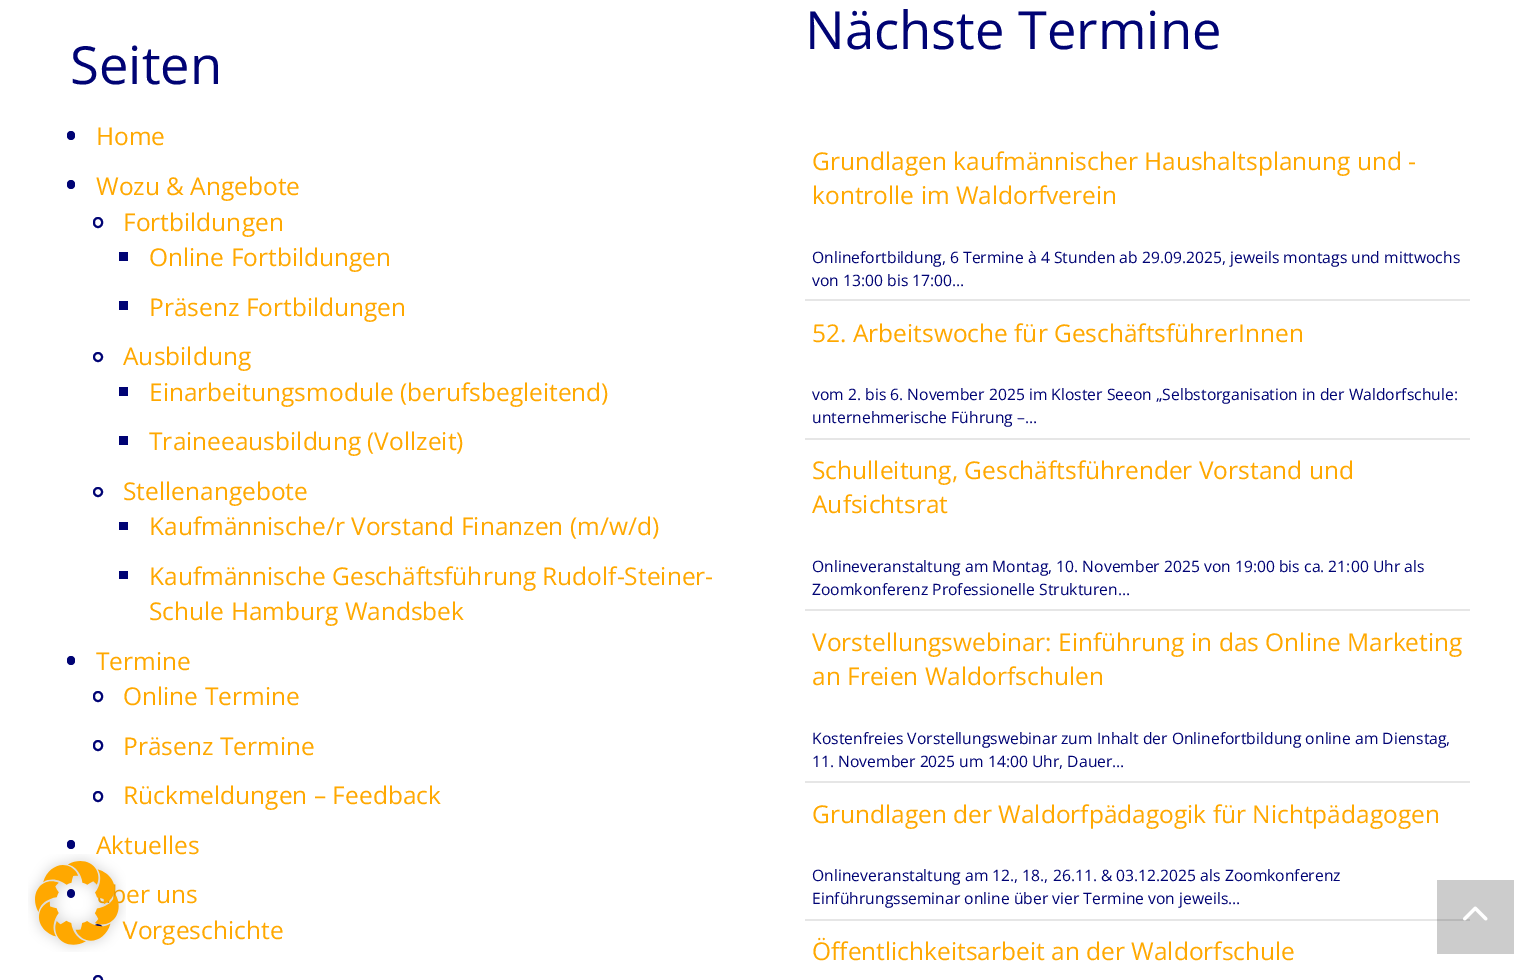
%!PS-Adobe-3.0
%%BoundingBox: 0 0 1540 980
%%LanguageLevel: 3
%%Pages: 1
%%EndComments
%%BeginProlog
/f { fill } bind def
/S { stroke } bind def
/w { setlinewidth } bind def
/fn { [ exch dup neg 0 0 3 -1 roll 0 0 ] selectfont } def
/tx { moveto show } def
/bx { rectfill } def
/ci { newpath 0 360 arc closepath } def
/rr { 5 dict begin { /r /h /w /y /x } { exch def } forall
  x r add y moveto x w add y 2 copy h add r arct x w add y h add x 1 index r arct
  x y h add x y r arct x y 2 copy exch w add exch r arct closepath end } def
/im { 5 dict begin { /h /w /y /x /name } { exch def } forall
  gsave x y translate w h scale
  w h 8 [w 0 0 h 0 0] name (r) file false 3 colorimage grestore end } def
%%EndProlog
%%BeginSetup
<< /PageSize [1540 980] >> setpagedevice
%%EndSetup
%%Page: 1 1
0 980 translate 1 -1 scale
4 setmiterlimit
1 setgray
0 0 1540 980 bx
0.8 setgray
1437 880 77 74 bx
/OpenSans-Regular 52.5 fn
0 0.012 0.455 setrgbcolor
(Seiten) 70 84 tx
67 131 8 9 4 rr f
/OpenSans-Regular 24.5 fn
1 0.659 0 setrgbcolor
(Home) 96 145 tx
0 0.012 0.455 setrgbcolor
67 180 8 9 4 rr f
1 0.659 0 setrgbcolor
(Wozu & Angebote) 96 195 tx
0 0.012 0.455 setrgbcolor
2 w
94 218 8 9 4 rr S
1 0.659 0 setrgbcolor
(Fortbildungen) 123 231 tx
0 0.012 0.455 setrgbcolor
119 252 9 9 bx
1 0.659 0 setrgbcolor
(Online Fortbildungen) 149 266 tx
0 0.012 0.455 setrgbcolor
119 301 9 9 bx
1 0.659 0 setrgbcolor
(Präsenz Fortbildungen) 149 316 tx
0 0.012 0.455 setrgbcolor
98 357 4 ci S
1 0.659 0 setrgbcolor
(Ausbildung) 123 365 tx
0 0.012 0.455 setrgbcolor
119 387 9 9 bx
1 0.659 0 setrgbcolor
(Einarbeitungsmodule \(berufsbegleitend\)) 149 401 tx
0 0.012 0.455 setrgbcolor
119 436 9 9 bx
1 0.659 0 setrgbcolor
(Traineeausbildung \(Vollzeit\)) 149 450 tx
0 0.012 0.455 setrgbcolor
98 492 4 ci S
1 0.659 0 setrgbcolor
(Stellenangebote) 123 500 tx
0 0.012 0.455 setrgbcolor
119 522 9 8 bx
1 0.659 0 setrgbcolor
(Kaufmännische/r Vorstand Finanzen \(m/w/d\)) 149 535 tx
0 0.012 0.455 setrgbcolor
119 571 9 8 bx
1 0.659 0 setrgbcolor
(Kaufmännische Geschäftsführung Rudolf-Steiner-) 149 585 tx
(Schule Hamburg Wandsbek) 149 620 tx
0 0.012 0.455 setrgbcolor
67 656 8 9 4 rr f
1 0.659 0 setrgbcolor
(Termine) 96 670 tx
0 0.012 0.455 setrgbcolor
94 692 8 9 4 rr S
1 0.659 0 setrgbcolor
(Online Termine) 123 705 tx
0 0.012 0.455 setrgbcolor
94 741 8 9 4 rr S
1 0.659 0 setrgbcolor
(Präsenz Termine) 123 755 tx
0 0.012 0.455 setrgbcolor
94 792 8 9 4 rr S
1 0.659 0 setrgbcolor
(Rückmeldungen – Feedback) 123 804 tx
0 0.012 0.455 setrgbcolor
67 840 8 9 4 rr f
1 0.659 0 setrgbcolor
(Aktuelles) 96 854 tx
0 0.012 0.455 setrgbcolor
67 889 8 9 4 rr f
1 0.659 0 setrgbcolor
(ber uns) 111 903 tx
0 0.012 0.455 setrgbcolor
94 925 8 9 4 rr S
1 0.659 0 setrgbcolor
(Vorgeschichte) 123 939 tx
0 0.012 0.455 setrgbcolor
98 980 4 ci S
/OpenSans-Regular 52.5 fn
(Nächste Termine) 805 49 tx
0.902 setgray
805 299 665 2 bx
/OpenSans-Regular 24.5 fn
1 0.659 0 setrgbcolor
(Grundlagen kaufmännischer Haushaltsplanung und -) 812 170 tx
(kontrolle im Waldorfverein) 812 204 tx
/OpenSans-Regular 15.7 fn
0 0.012 0.455 setrgbcolor
(Onlinefortbildung, 6 Termine à 4 Stunden ab 29.09.2025, jeweils montags und mittwochs) 812 263 tx
(von 13:00 bis 17:00…) 812 286 tx
0.902 setgray
805 438 665 2 bx
/OpenSans-Regular 24.5 fn
1 0.659 0 setrgbcolor
(52. Arbeitswoche für GeschäftsführerInnen) 812 342 tx
/OpenSans-Regular 15.7 fn
0 0.012 0.455 setrgbcolor
(vom 2. bis 6. November 2025 im Kloster Seeon „Selbstorganisation in der Waldorfschule:) 812 400 tx
(unternehmerische Führung –…) 812 423 tx
0.902 setgray
805 609 665 2 bx
/OpenSans-Regular 24.5 fn
1 0.659 0 setrgbcolor
(Schulleitung, Geschäftsführender Vorstand und) 812 479 tx
(Aufsichtsrat) 812 513 tx
/OpenSans-Regular 15.7 fn
0 0.012 0.455 setrgbcolor
(Onlineveranstaltung am Montag, 10. November 2025 von 19:00 bis ca. 21:00 Uhr als) 812 572 tx
(Zoomkonferenz Professionelle Strukturen…) 812 595 tx
0.902 setgray
805 781 665 2 bx
/OpenSans-Regular 24.5 fn
1 0.659 0 setrgbcolor
(Vorstellungswebinar: Einführung in das Online Marketing) 812 651 tx
(an Freien Waldorfschulen) 812 685 tx
/OpenSans-Regular 15.7 fn
0 0.012 0.455 setrgbcolor
(Kostenfreies Vorstellungswebinar zum Inhalt der Onlinefortbildung online am Dienstag,) 812 744 tx
(11. November 2025 um 14:00 Uhr, Dauer…) 812 767 tx
0.902 setgray
805 919 632 2 bx
0.722 setgray
1437 919 33 2 bx
/OpenSans-Regular 24.5 fn
1 0.659 0 setrgbcolor
(Grundlagen der Waldorfpädagogik für Nichtpädagogen) 812 823 tx
/OpenSans-Regular 15.7 fn
0 0.012 0.455 setrgbcolor
(Onlineveranstaltung am 12., 18., 26.11. & 03.12.2025 als Zoomkonferenz) 812 881 tx
(Einführungsseminar online über vier Termine von jeweils…) 812 904 tx
/OpenSans-Regular 24.5 fn
1 0.659 0 setrgbcolor
(Öffentlichkeitsarbeit an der Waldorfschule) 812 960 tx
(image0.raw) 28 854 98 98 im
(image1.raw) 1463 906 25 15 im
showpage
%%EOF
